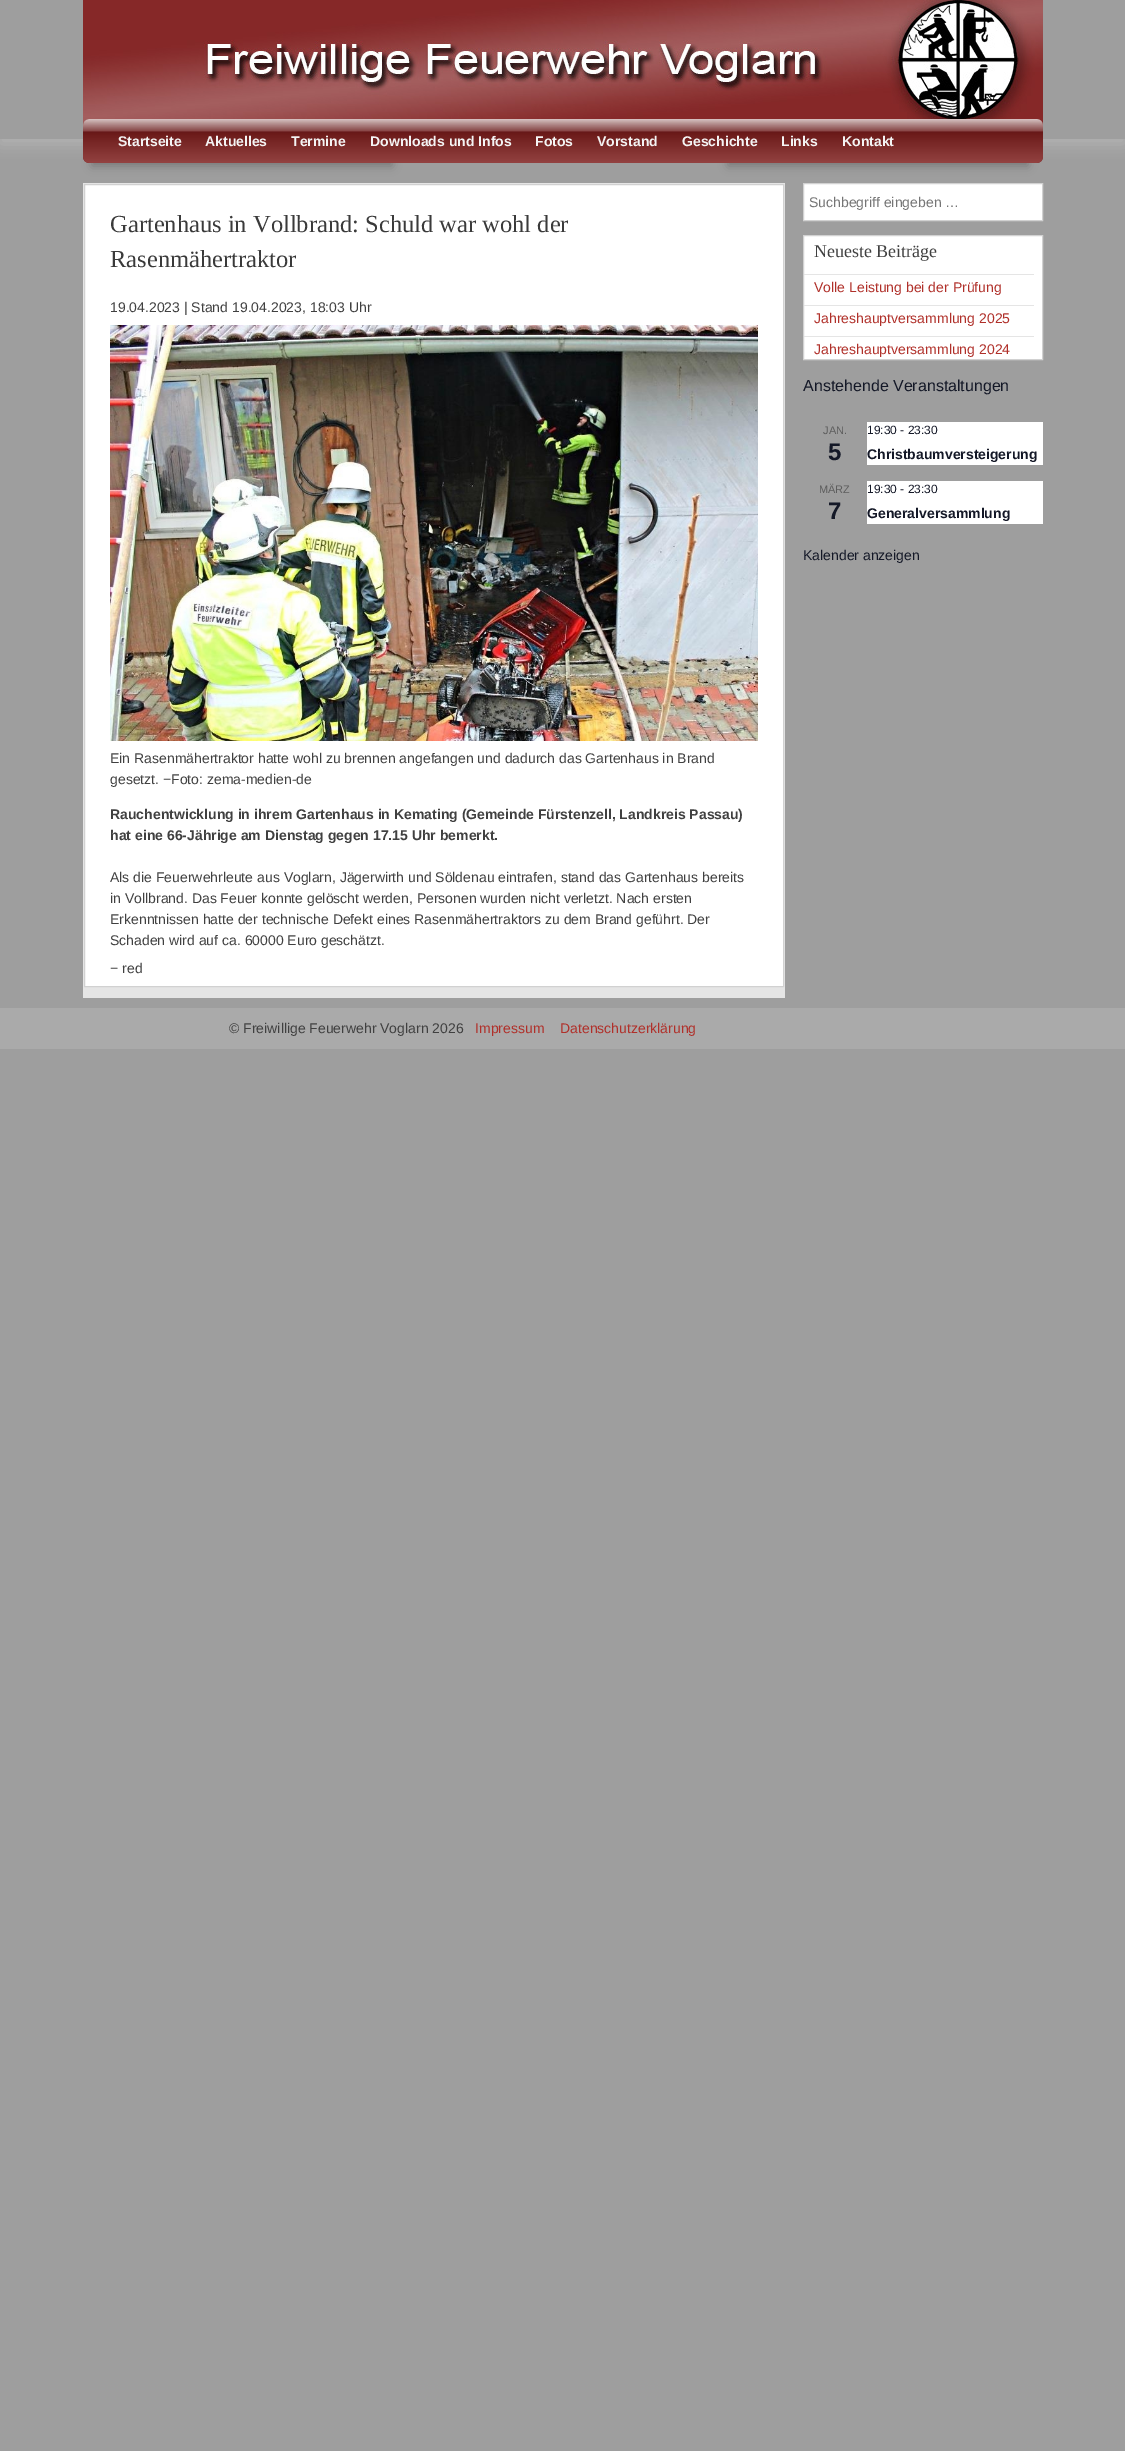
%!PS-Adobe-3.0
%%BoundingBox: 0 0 1125 2451
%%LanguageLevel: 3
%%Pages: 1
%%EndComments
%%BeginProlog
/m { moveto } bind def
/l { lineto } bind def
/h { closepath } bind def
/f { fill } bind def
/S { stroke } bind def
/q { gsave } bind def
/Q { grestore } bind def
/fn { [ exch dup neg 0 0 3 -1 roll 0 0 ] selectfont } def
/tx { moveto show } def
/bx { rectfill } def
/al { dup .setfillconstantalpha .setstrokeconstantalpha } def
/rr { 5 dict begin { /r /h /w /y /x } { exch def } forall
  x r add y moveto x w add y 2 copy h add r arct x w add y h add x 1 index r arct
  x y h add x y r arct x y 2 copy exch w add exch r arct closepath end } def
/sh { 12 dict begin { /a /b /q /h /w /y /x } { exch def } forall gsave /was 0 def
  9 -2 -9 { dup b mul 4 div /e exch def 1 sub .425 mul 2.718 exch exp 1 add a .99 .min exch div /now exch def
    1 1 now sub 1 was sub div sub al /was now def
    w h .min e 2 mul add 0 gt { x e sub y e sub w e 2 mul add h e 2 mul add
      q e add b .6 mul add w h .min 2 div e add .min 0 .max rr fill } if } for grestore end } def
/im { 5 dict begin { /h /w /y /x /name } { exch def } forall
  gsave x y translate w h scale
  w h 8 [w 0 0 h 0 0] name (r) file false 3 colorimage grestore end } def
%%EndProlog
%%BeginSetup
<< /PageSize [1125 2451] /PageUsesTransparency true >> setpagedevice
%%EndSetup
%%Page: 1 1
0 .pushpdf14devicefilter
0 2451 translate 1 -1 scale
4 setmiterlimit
0.62 setgray
0 0 1125 2451 bx
q
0 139 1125 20 rectclip
0.698 setgray
0 5 1125 139 0 7.5 1 sh
Q
(image0.raw) 83 0 960 125 im
0.467 setgray
92 143 300 23 0 5 1 sh
728 143 300 23 0 5 1 sh
(image1.raw) 83 119 960 44 im
/LiberationSans-Bold 14 fn
0.957 setgray
(Startseite) 118 146 tx
(Aktuelles) 205 146 tx
(Termine) 291 146 tx
(Downloads und Infos) 370 146 tx
(Fotos) 535 146 tx
(Vorstand) 597 146 tx
(Geschichte) 682 146 tx
(Links) 781 146 tx
(Kontakt) 842 146 tx
0.898 setgray
83 183 702 815 bx
1 setgray
84.5 184.5 m 783.5 184.5 l 783.5 986.5 l 84.5 986.5 l h q f Q
0.82 setgray
S
/LiberationSerif-Regular 24.5 fn
0.227 setgray
(Gartenhaus in Vollbrand: Schuld war wohl der) 110 232 tx
(Rasenmähertraktor) 110 267 tx
/LiberationSans-Regular 14 fn
0.251 setgray
(19.04.2023 | Stand 19.04.2023, 18:03 Uhr) 110 312 tx
(image2.raw) 110 325 648 416 im
(Ein Rasenmähertraktor hatte wohl zu brennen angefangen und dadurch das Gartenhaus in Brand) 110 763 tx
(gesetzt. −Foto: zema-medien-de) 110 784 tx
/LiberationSans-Bold 14 fn
(Rauchentwicklung in ihrem Gartenhaus in Kemating \(Gemeinde Fürstenzell, Landkreis Passau\)) 110 819 tx
(hat eine 66-Jährige am Dienstag gegen 17.15 Uhr bemerkt.) 110 840 tx
/LiberationSans-Regular 14 fn
(Als die Feuerwehrleute aus Voglarn, Jägerwirth und Söldenau eintrafen, stand das Gartenhaus bereits) 110 882 tx
(in Vollbrand. Das Feuer konnte gelöscht werden, Personen wurden nicht verletzt. Nach ersten) 110 903 tx
(Erkenntnissen hatte der technische Defekt eines Rasenmähertraktors zu dem Brand geführt. Der) 110 924 tx
(Schaden wird auf ca. 60000 Euro geschätzt.) 110 945 tx
(− red) 110 973 tx
1 setgray
803.5 183.5 m 1042.5 183.5 l 1042.5 220.5 l 803.5 220.5 l h q f Q
0.82 setgray
S
0.459 setgray
(Suchbegriff eingeben …) 809 207 tx
1 setgray
803.5 235.5 m 1042.5 235.5 l 1042.5 359.5 l 803.5 359.5 l h q f Q
0.82 setgray
S
/LiberationSerif-Regular 18 fn
0.251 setgray
(Neueste Beiträge) 814 257 tx
0.898 setgray
804 274 230 1 bx
/LiberationSans-Regular 14 fn
0.69 0.188 0.165 setrgbcolor
(Volle Leistung bei der Prüfung) 814 292 tx
0.898 setgray
804 305 230 1 bx
0.69 0.188 0.165 setrgbcolor
(Jahreshauptversammlung 2025) 814 323 tx
0.898 setgray
804 336 230 1 bx
0.69 0.188 0.165 setrgbcolor
(Jahreshauptversammlung 2024) 814 354 tx
/LiberationSans-Regular 16 fn
0.078 0.094 0.153 setrgbcolor
(Anstehende Veranstaltungen) 803 391 tx
/LiberationSans-Regular 11 fn
0.365 setgray
(JAN.) 823 434 tx
/LiberationSans-Bold 24 fn
0.078 0.094 0.153 setrgbcolor
(5) 828 460 tx
1 setgray
867 422 176 43 bx
/LiberationSans-Regular 12 fn
0.078 0.094 0.153 setrgbcolor
(19:30 - 23:30) 867 434 tx
/LiberationSans-Bold 14 fn
(Christbaumversteigerung) 867 459 tx
/LiberationSans-Regular 11 fn
0.365 setgray
(MÄRZ) 819 493 tx
/LiberationSans-Bold 24 fn
0.078 0.094 0.153 setrgbcolor
(7) 828 519 tx
1 setgray
867 481 176 43 bx
/LiberationSans-Regular 12 fn
0.078 0.094 0.153 setrgbcolor
(19:30 - 23:30) 867 493 tx
/LiberationSans-Bold 14 fn
(Generalversammlung) 867 518 tx
/LiberationSans-Regular 14 fn
(Kalender anzeigen) 803 560 tx
0.667 setgray
0 1008 1125 41 bx
0.251 setgray
(© Freiwillige Feuerwehr Voglarn 2026) 229 1033 tx
0.69 0.188 0.165 setrgbcolor
(Impressum) 475 1033 tx
(Datenschutzerklärung) 560 1033 tx
.poppdf14devicefilter showpage
%%EOF
